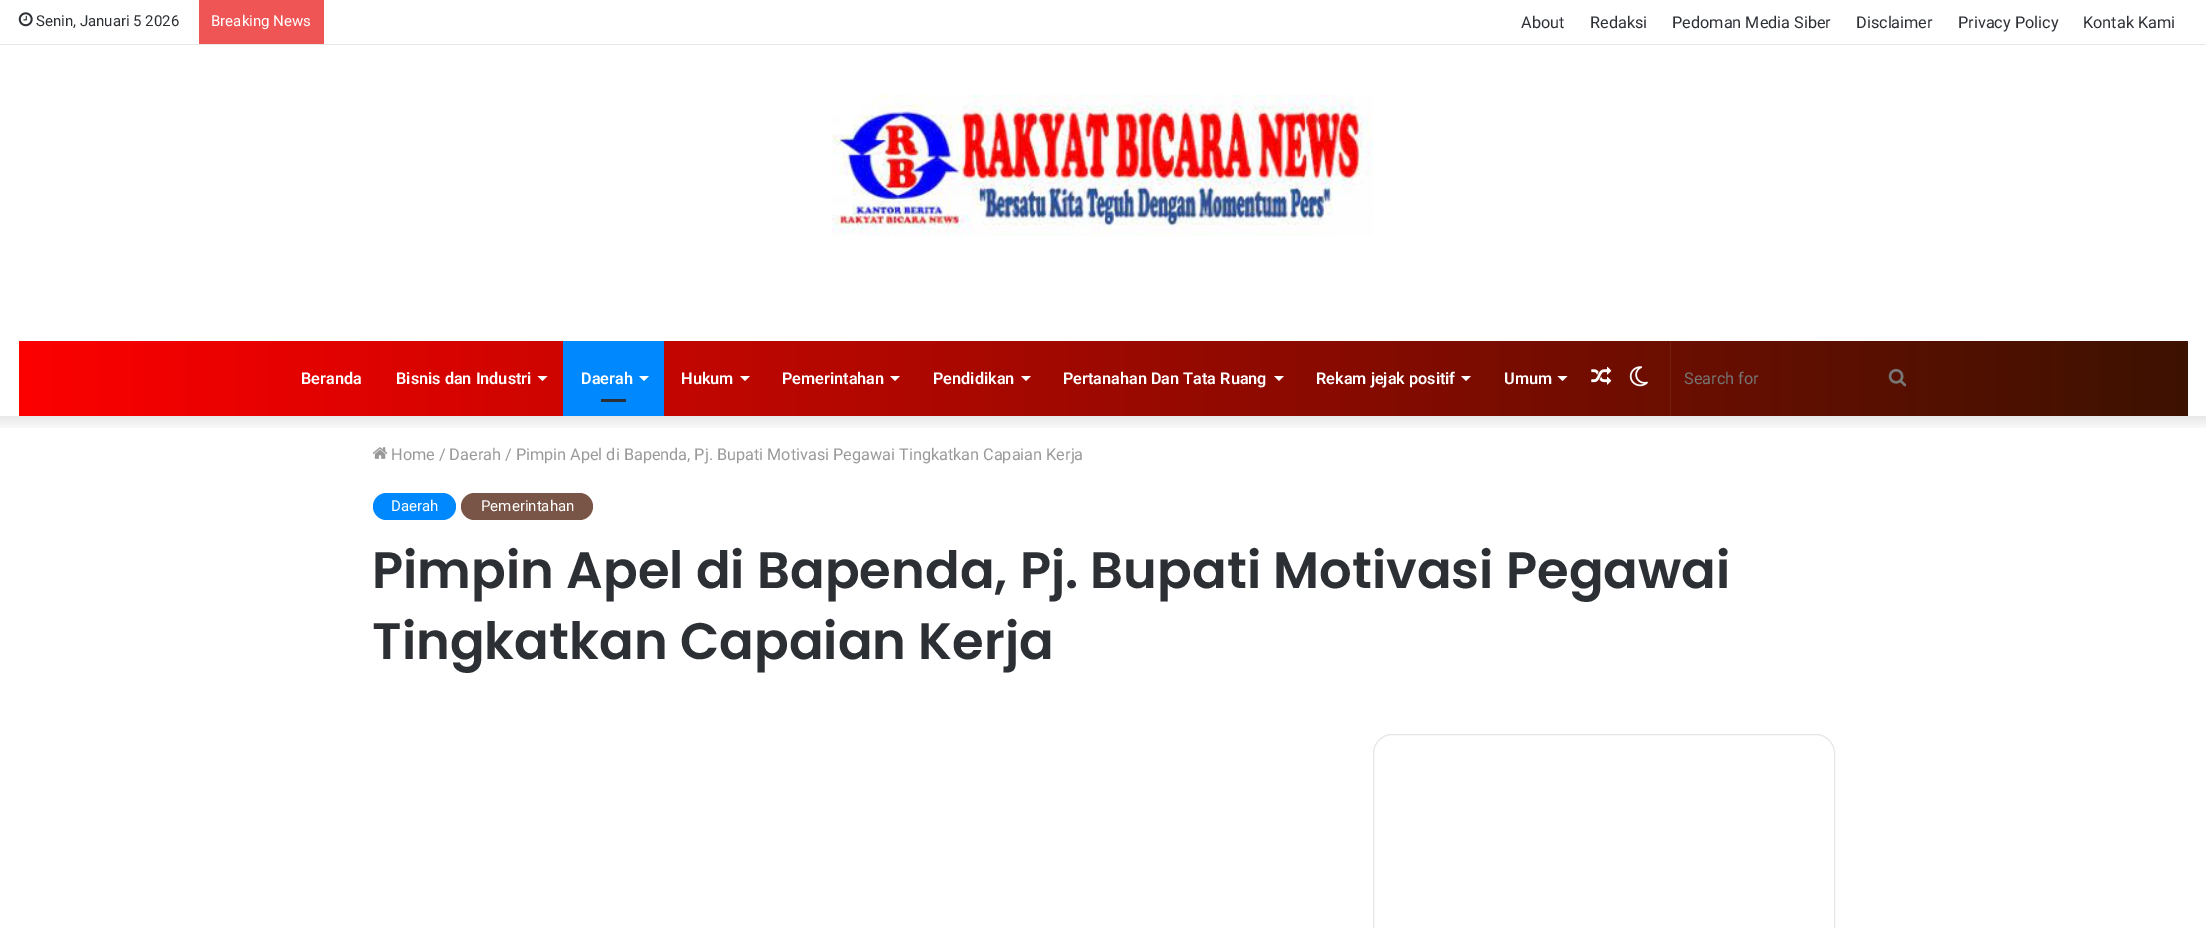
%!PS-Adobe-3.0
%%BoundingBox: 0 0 2206 928
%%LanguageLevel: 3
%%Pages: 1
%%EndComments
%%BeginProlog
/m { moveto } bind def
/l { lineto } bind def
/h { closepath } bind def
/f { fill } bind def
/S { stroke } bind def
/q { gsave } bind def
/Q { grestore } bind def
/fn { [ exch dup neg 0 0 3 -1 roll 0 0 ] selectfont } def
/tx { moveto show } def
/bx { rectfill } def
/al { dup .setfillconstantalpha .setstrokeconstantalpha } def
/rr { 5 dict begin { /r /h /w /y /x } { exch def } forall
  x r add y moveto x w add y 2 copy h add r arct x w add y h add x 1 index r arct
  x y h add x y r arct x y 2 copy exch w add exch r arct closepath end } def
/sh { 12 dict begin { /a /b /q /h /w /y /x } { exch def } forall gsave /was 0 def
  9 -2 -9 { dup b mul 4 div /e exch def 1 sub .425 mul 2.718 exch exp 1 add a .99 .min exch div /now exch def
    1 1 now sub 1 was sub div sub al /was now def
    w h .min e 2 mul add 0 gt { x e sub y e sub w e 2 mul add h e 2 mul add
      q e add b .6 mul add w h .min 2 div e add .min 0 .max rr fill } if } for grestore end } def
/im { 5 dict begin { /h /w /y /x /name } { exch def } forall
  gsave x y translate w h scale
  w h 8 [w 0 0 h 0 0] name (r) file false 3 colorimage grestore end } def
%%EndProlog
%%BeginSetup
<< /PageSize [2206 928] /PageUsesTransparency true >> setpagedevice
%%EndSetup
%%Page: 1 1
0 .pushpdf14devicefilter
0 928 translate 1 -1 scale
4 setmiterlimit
1 setgray
0 0 2206 928 bx
q
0 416 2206 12 rectclip
0 setgray
-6 -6 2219 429 0 6 0.1 sh
Q
0.902 setgray
0 44 2206 1 bx
(image0.raw) 18 12 15 15 im
/Roboto-Regular 15 fn
0.173 0.184 0.204 setrgbcolor
(Senin, Januari 5 2026) 36 26 tx
0.941 0.333 0.333 setrgbcolor
199 0 125 44 bx
1 setgray
(Breaking News) 211 26 tx
/Roboto-Regular 16.25 fn
0.173 0.184 0.204 setrgbcolor
(About) 1521 28 tx
(Redaksi) 1590 28 tx
(Pedoman Media Siber) 1672 28 tx
(Disclaimer) 1856 28 tx
(Privacy Policy) 1958 28 tx
(Kontak Kami) 2083 28 tx
(image1.raw) 832 95 541 141 im
q 19 341 m 2188 341 l 2188 416 l 19 416 l h clip newpath
<< /ShadingType 2 /ColorSpace /DeviceRGB /Coords [19 379 2188 379] /Extend [true true] /Function << /FunctionType 2 /Domain [0 1] /C0 [0.992 0 0] /C1 [0.239 0.071 0] /N 1 >> >> shfill Q
/Roboto-SemiBold 16.25 fn
1 setgray
(Beranda) 301 384 tx
(Bisnis dan Industri) 396 384 tx
537.5 376 m 547.5 376 l 542.5 381 l h f
0 0.533 1 setrgbcolor
563 341 101 75 bx
1 setgray
(Daerah) 581 384 tx
639 376 m 649 376 l 644 381 l h f
0.173 0.184 0.204 setrgbcolor
601 399 25 3 bx
1 setgray
(Hukum) 681 384 tx
740 376 m 750 376 l 745 381 l h f
(Pemerintahan) 782 384 tx
890 376 m 900 376 l 895 381 l h f
(Pendidikan) 933 384 tx
1021 376 m 1031 376 l 1026 381 l h f
(Pertanahan Dan Tata Ruang) 1063 384 tx
1274 376 m 1284 376 l 1279 381 l h f
(Rekam jejak positif) 1316 384 tx
1461 376 m 1471 376 l 1466 381 l h f
(Umum) 1504 384 tx
1557.5 376 m 1567.5 376 l 1562.5 381 l h f
(image2.raw) 1591 366 21 19 im
(image3.raw) 1629 366 19 21 im
0.459 0.122 0.071 setrgbcolor
1670 341 1 75 bx
/Roboto-Regular 16.25 fn
0.459 setgray
(Search for) 1684 384 tx
(image4.raw) 1888 368 19 19 im
(image5.raw) 372 447 16 12 im
0.6 setgray
(Home / Daerah / Pimpin Apel di Bapenda, Pj. Bupati Motivasi Pegawai Tingkatkan Capaian Kerja) 391 460 tx
0 0.533 1 setrgbcolor
373 493 83 27 13.5 rr f
/Roboto-Regular 15 fn
1 setgray
(Daerah) 391 511 tx
0.475 0.333 0.282 setrgbcolor
461 493 132 27 13.5 rr f
1 setgray
(Pemerintahan) 481 511 tx
/Poppins-SemiBold 51.25 fn
0.173 0.184 0.204 setrgbcolor
(Pimpin Apel di Bapenda, Pj. Bupati Motivasi Pegawai) 372 588 tx
(Tingkatkan Capaian Kerja) 372 659 tx
0.902 setgray
1373.5 734.5 461 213 18.5 rr S
.poppdf14devicefilter showpage
%%EOF
